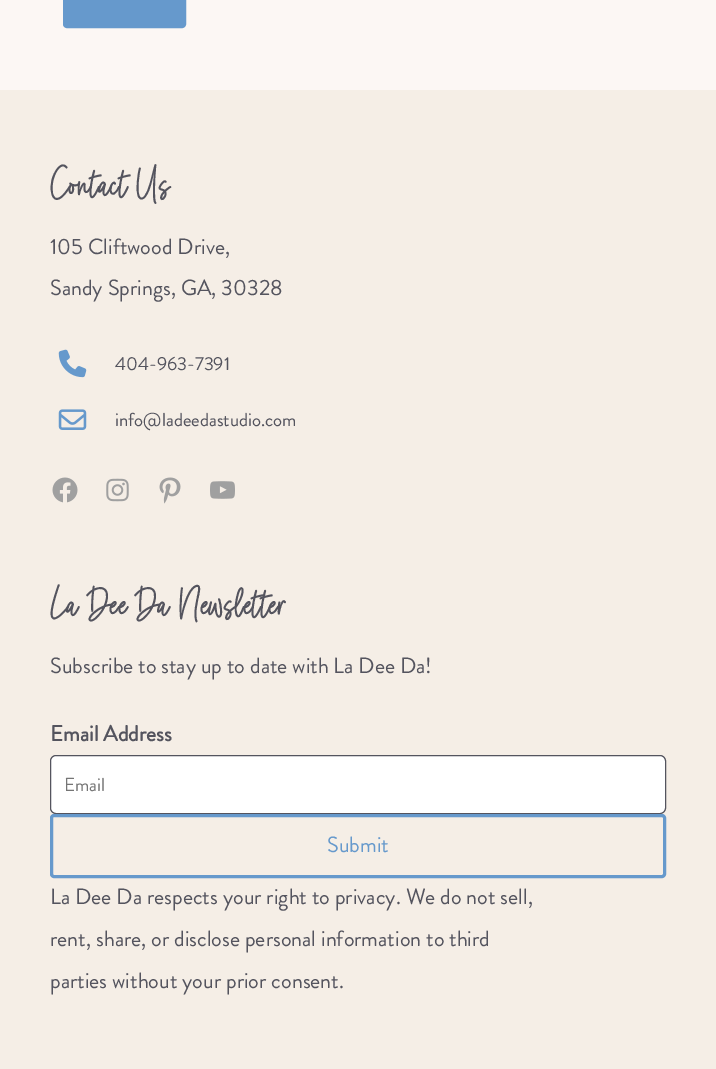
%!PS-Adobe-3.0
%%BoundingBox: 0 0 716 1069
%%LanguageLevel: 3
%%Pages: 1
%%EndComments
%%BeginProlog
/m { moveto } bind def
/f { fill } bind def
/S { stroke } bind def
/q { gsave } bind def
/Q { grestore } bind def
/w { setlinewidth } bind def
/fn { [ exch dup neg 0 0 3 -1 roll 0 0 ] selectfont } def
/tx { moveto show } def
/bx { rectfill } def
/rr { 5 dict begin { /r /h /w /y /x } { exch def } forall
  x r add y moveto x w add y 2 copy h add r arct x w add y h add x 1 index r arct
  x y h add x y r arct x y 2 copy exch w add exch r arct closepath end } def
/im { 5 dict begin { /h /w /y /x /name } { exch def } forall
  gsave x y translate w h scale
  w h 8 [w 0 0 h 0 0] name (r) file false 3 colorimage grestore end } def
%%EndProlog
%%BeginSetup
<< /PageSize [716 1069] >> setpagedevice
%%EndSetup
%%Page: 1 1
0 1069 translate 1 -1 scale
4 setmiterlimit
0.988 0.969 0.957 setrgbcolor
0 0 716 1069 bx
0.4 0.6 0.8 setrgbcolor
65 -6 119 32 2 rr q f Q
4 w
S
0.961 0.933 0.902 setrgbcolor
0 90 716 979 bx
/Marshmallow-Bold 30 fn
0.329 0.329 0.369 setrgbcolor
50 193 m 0.5 0 (Contact Us) ashow
/BrandonGrotesque-Regular 22 fn
(105 Cliftwood Drive,) 50 254 tx
(Sandy Springs, GA, 30328) 50 295 tx
(image0.raw) 58 349 29 29 im
/BrandonGrotesque-Regular 18.75 fn
(404-963-7391) 115 370 tx
(image1.raw) 58 409 29 21 im
(info@ladeedastudio.com) 115 426 tx
(image2.raw) 52 477 26 26 im
(image3.raw) 106 478 23 24 im
(image4.raw) 159 477 22 27 im
(image5.raw) 210 481 25 18 im
/Marshmallow-Bold 30 fn
50 613 m 0.5 0 (La Dee Da Newsletter) ashow
/BrandonGrotesque-Regular 22 fn
(Subscribe to stay up to date with La Dee Da!) 50 673 tx
/BrandonGrotesque-Bold 22 fn
(Email Address) 50 741 tx
1 setgray
50.5 755.5 615 58 5.5 rr q f Q
0.329 0.329 0.369 setrgbcolor
1 w
S
/BrandonGrotesque-Regular 18.75 fn
0.459 setgray
(Email) 64 791 tx
0.4 0.6 0.8 setrgbcolor
3 w
51.5 815.5 613 61 2.5 rr S
/BrandonGrotesque-Regular 22 fn
(Submit) 327 852 tx
0.329 0.329 0.369 setrgbcolor
(La Dee Da respects your right to privacy. We do not sell,) 50 904 tx
(rent, share, or disclose personal information to third) 50 946 tx
(parties without your prior consent.) 50 988 tx
showpage
%%EOF
